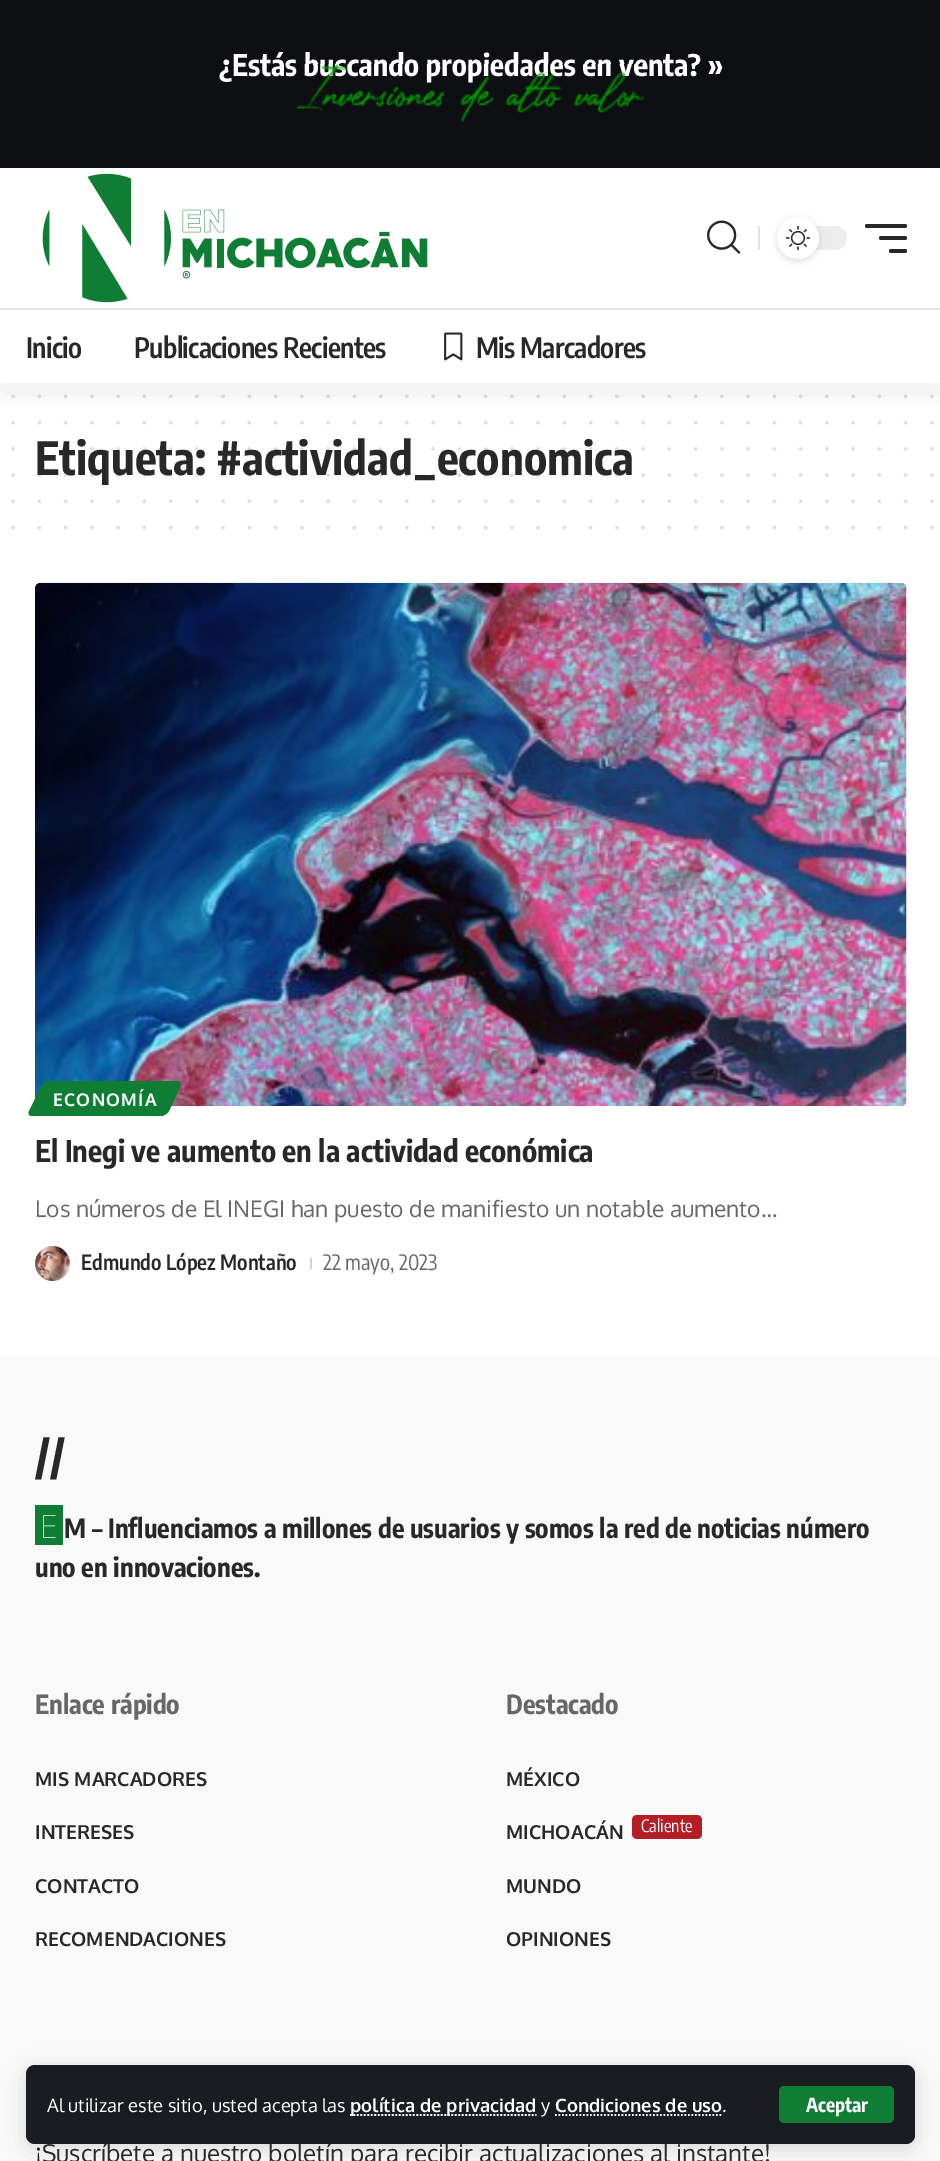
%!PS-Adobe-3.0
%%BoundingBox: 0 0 940 2161
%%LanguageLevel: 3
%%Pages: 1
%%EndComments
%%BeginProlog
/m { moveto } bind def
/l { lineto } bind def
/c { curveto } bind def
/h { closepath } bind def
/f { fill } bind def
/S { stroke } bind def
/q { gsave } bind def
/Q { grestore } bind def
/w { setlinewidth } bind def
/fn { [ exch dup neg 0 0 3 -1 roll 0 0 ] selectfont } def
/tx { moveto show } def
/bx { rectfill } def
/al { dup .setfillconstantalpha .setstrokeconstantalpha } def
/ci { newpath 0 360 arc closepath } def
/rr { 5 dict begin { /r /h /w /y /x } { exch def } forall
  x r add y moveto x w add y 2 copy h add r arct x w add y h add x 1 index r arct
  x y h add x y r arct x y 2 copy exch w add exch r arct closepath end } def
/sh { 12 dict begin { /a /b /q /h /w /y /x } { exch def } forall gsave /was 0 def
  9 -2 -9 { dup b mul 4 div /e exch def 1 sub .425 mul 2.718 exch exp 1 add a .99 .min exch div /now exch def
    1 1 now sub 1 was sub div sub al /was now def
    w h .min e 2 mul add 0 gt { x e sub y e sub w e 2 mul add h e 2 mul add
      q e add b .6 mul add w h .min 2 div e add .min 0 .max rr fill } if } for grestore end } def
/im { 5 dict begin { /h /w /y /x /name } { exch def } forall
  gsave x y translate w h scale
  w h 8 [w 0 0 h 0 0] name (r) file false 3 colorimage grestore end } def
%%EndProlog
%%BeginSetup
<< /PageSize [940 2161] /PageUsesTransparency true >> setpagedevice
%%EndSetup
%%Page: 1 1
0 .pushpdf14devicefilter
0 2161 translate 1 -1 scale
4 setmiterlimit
1 setgray
0 0 940 2161 bx
0.055 0.059 0.071 setrgbcolor
0 0 940 168 bx
/EncodeSansCondensed-Bold 29.75 fn
1 setgray
(¿Estás buscando propiedades en venta? ») 219 76 tx
(image0.raw) 295 64 351 59 im
0.875 setgray
3.5 w
1 setlinecap
[0 26.25] 0 setdash
13.1 396.4 m 932.2 396.4 l S
13.1 422.6 m 932.2 422.6 l S
/EncodeSansCondensed-Bold 45.5 fn
0.157 setgray
(Etiqueta: #actividad_economica) 35 475 tx
0.15 al
13.1 448.9 m 932.2 448.9 l S
q
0 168 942 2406 rectclip
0 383 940 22 rectclip
1 al
0 setgray
0 175 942 215 0 26 0.07 sh
Q
1 al
(image1.raw) 42 173 386 130 im
(image2.raw) 707 220 34 34 im
0.894 setgray
758 226 2 24 bx
0.929 setgray
777 226 70 24 12 rr f
0 setgray
777 219 42 42 21 3.5 0.12 sh
1 setgray
798 238 21 ci f
(image3.raw) 786 226 24 24 im
0.157 setgray
865 224 42 4 2 rr f
879 236 28 4 2 rr f
889 249 18 4 2 rr f
0.894 setgray
0 308 940 2 bx
/EncodeSansCondensed-SemiBold 28 fn
0.157 setgray
26 358 m -0.6 0 (Inicio) ashow
134 358 m -0.6 0 (Publicaciones Recientes) ashow
(image4.raw) 444 332 19 29 im
476 358 m -0.6 0 (Mis Marcadores) ashow
0.976 setgray
0 1356 940 805 bx
0 setgray
26 2070 889 79 9 10.5 0.12 sh
/Oxygen-Regular 24.15 fn
0.157 setgray
(¡Suscríbete a nuestro boletín para recibir actualizaciones al instante!) 35 2162 tx
0.098 0.11 0.125 setrgbcolor
26 2065 889 79 9 rr f
/Oxygen-Regular 18.4 fn
1 setgray
(Al utilizar este sitio, usted acepta las) 47 2112 tx
1.8 w
0 setlinecap
[1.75 1.75] 0 setdash
350 2115 m 536.5 2115 l S
/Oxygen-Bold 18.4 fn
(política de privacidad) 350 2112 tx
/Oxygen-Regular 18.4 fn
(y) 541 2112 tx
/Oxygen-Bold 18.4 fn
(Condiciones de uso) 555 2112 tx
555 2115 m 722 2115 l S
/Oxygen-Regular 18.4 fn
(.) 722 2112 tx
0.063 0.49 0.208 setrgbcolor
779 2086 115 37 5 rr f
/EncodeSansCondensed-Bold 19.25 fn
1 setgray
(Aceptar) 806 2112 tx
0.15 al
0.157 setgray
3.5 w
1 setlinecap
[0 26.25] 0 setdash
13.1 475.1 m 932.2 475.1 l S
1 al
0.875 setgray
13.1 501.4 m 932.2 501.4 l S
13.1 527.6 m 932.2 527.6 l S
(image5.raw) 35 582 872 524 im
0.063 0.49 0.208 setrgbcolor
48 1081 m 177 1081 l 180 1081 181 1084 180 1087 c 169 1111 l 167 1114 164 1116 161 1116 c 32 1116 l 29 1116 28 1114 29 1111 c 41 1087 l 42 1084 46 1081 48 1081 c h f
/Oxygen-Bold 17.5 fn
1 setgray
53 1106 m 1.25 0 (ECONOMÍA) ashow
/EncodeSansCondensed-Bold 29.75 fn
0.157 setgray
(El Inegi ve aumento en la actividad económica) 35 1162 tx
/Oxygen-Regular 22.75 fn
0.404 setgray
(Los números de El INEGI han puesto de manifiesto un notable aumento…) 35 1217 tx
(image6.raw) 35 1246 35 35 im
/EncodeSansCondensed-SemiBold 21 fn
0.157 setgray
(Edmundo López Montaño) 81 1270 tx
0.82 setgray
310 1258 2 11 bx
/EncodeSansCondensed-Regular 21 fn
0.404 setgray
(22 mayo, 2023) 323 1270 tx
/EncodeSansCondensed-Bold 45.5 fn
0.157 setgray
(//) 35 1474 tx
0.063 0.49 0.208 setrgbcolor
35 1505 28 40 bx
/NotoSans-Thin 32 fn
1 setgray
(E) 40 1538 tx
/EncodeSansCondensed-Bold 26.25 fn
0.157 setgray
(M – Influenciamos a millones de usuarios y somos la red de noticias número) 64 1538 tx
(uno en innovaciones.) 35 1577 tx
0.404 setgray
(Enlace rápido) 35 1714 tx
/Oxygen-Bold 19.25 fn
0.157 setgray
(MIS MARCADORES) 35 1786 tx
(INTERESES) 35 1839 tx
(CONTACTO) 35 1893 tx
(RECOMENDACIONES) 35 1946 tx
/EncodeSansCondensed-Bold 26.25 fn
0.404 setgray
(Destacado) 506 1714 tx
/Oxygen-Bold 19.25 fn
0.157 setgray
(MÉXICO) 506 1786 tx
(MICHOACÁN) 506 1839 tx
0.71 0.11 0.149 setrgbcolor
632 1815 70 24 5 rr f
/EncodeSansCondensed-Regular 17 fn
1 setgray
(Caliente) 641 1832 tx
/Oxygen-Bold 19.25 fn
0.157 setgray
(MUNDO) 506 1893 tx
(OPINIONES) 506 1946 tx
.poppdf14devicefilter showpage
%%EOF
